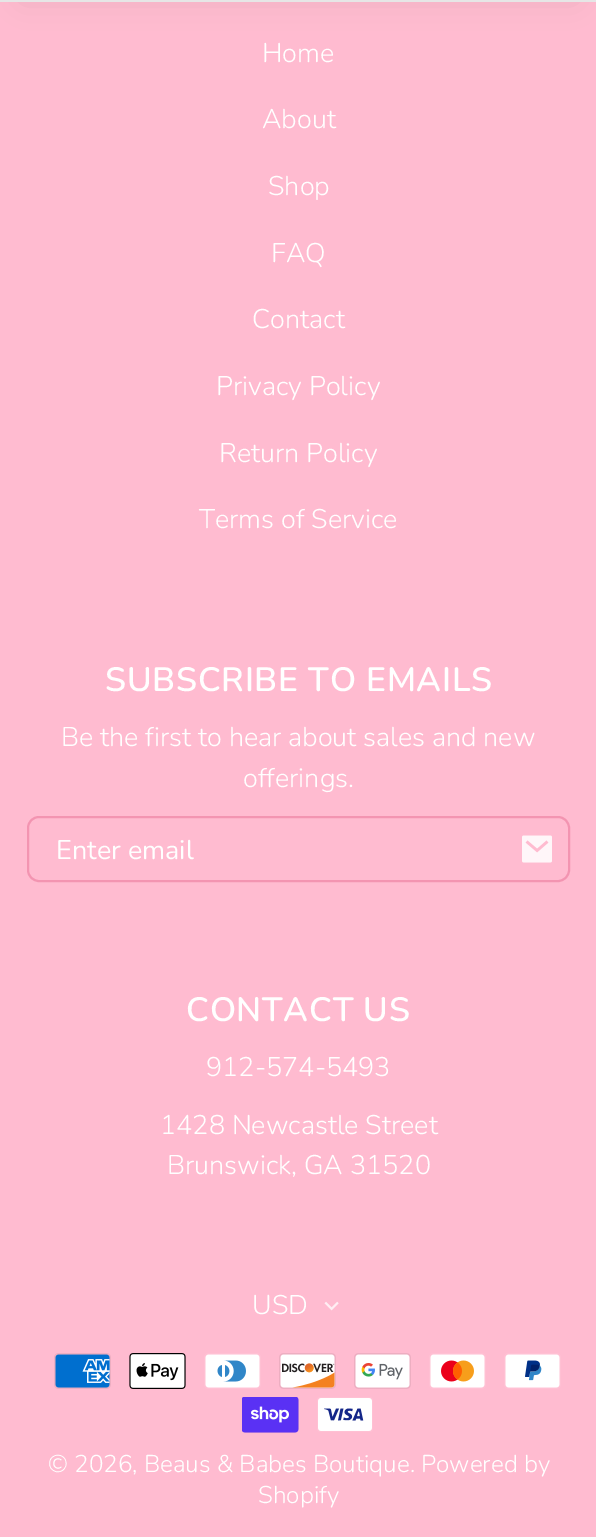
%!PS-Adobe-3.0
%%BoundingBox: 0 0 596 1537
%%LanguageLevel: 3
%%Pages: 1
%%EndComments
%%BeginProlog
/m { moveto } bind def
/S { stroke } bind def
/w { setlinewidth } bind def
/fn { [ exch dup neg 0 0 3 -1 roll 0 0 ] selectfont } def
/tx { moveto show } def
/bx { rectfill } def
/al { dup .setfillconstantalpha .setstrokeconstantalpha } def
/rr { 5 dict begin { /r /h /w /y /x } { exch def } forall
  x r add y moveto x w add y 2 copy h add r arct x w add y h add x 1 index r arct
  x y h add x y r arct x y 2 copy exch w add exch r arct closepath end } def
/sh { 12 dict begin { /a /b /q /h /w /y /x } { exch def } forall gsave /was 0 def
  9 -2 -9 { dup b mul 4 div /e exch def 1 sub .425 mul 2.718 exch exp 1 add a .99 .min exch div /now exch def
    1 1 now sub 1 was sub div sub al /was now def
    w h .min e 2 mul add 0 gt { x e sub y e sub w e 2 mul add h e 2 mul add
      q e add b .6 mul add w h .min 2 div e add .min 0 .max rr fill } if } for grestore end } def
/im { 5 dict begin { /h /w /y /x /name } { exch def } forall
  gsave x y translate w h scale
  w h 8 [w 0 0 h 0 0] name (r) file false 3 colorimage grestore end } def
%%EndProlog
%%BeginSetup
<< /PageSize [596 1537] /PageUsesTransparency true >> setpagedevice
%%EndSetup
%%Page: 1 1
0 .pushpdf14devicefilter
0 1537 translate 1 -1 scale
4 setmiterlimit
1 0.733 0.816 setrgbcolor
0 0 596 1537 bx
0.251 0.243 0.255 setrgbcolor
23 -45 552 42 0 15 0.15 sh
0.902 setgray
0 0 596 2 bx
/Nunito-Light 27 fn
1 setgray
(Home) 262 62 tx
(About) 262 128 tx
(Shop) 268 195 tx
(FAQ) 271 262 tx
(Contact) 252 328 tx
(Privacy Policy) 216 395 tx
(Return Policy) 219 462 tx
(Terms of Service) 199 528 tx
/Nunito-SemiBold 33.75 fn
105 691 m 0.7 0 (SUBSCRIBE TO EMAILS) ashow
/Nunito-Light 27 fn
(Be the first to hear about sales and new) 61 746 tx
(offerings.) 243 787 tx
0.953 0.58 0.694 setrgbcolor
2 w
28 817 541 64 11 rr S
/Nunito-Regular 27 fn
1 setgray
(Enter email) 56 859 tx
(image0.raw) 522 835 30 28 im
/Nunito-SemiBold 33.75 fn
186 1021 m 0.7 0 (CONTACT US) ashow
/Nunito-Light 27 fn
(912-574-5493) 206 1076 tx
(1428 Newcastle Street) 160 1134 tx
(Brunswick, GA 31520) 167 1174 tx
(USD) 252 1314 tx
(image1.raw) 324 1301 15 10 im
(image2.raw) 54 1353 57 36 im
(image3.raw) 129 1353 57 36 im
(image4.raw) 204 1353 57 36 im
(image5.raw) 279 1353 57 36 im
(image6.raw) 354 1353 57 36 im
(image7.raw) 429 1353 57 36 im
(image8.raw) 504 1353 57 36 im
(image9.raw) 242 1397 57 36 im
(image10.raw) 317 1397 56 35 im
/Nunito-Light 24.3 fn
(© 2026, Beaus & Babes Boutique. Powered by) 48 1472 tx
(Shopify) 258 1503 tx
.poppdf14devicefilter showpage
%%EOF
